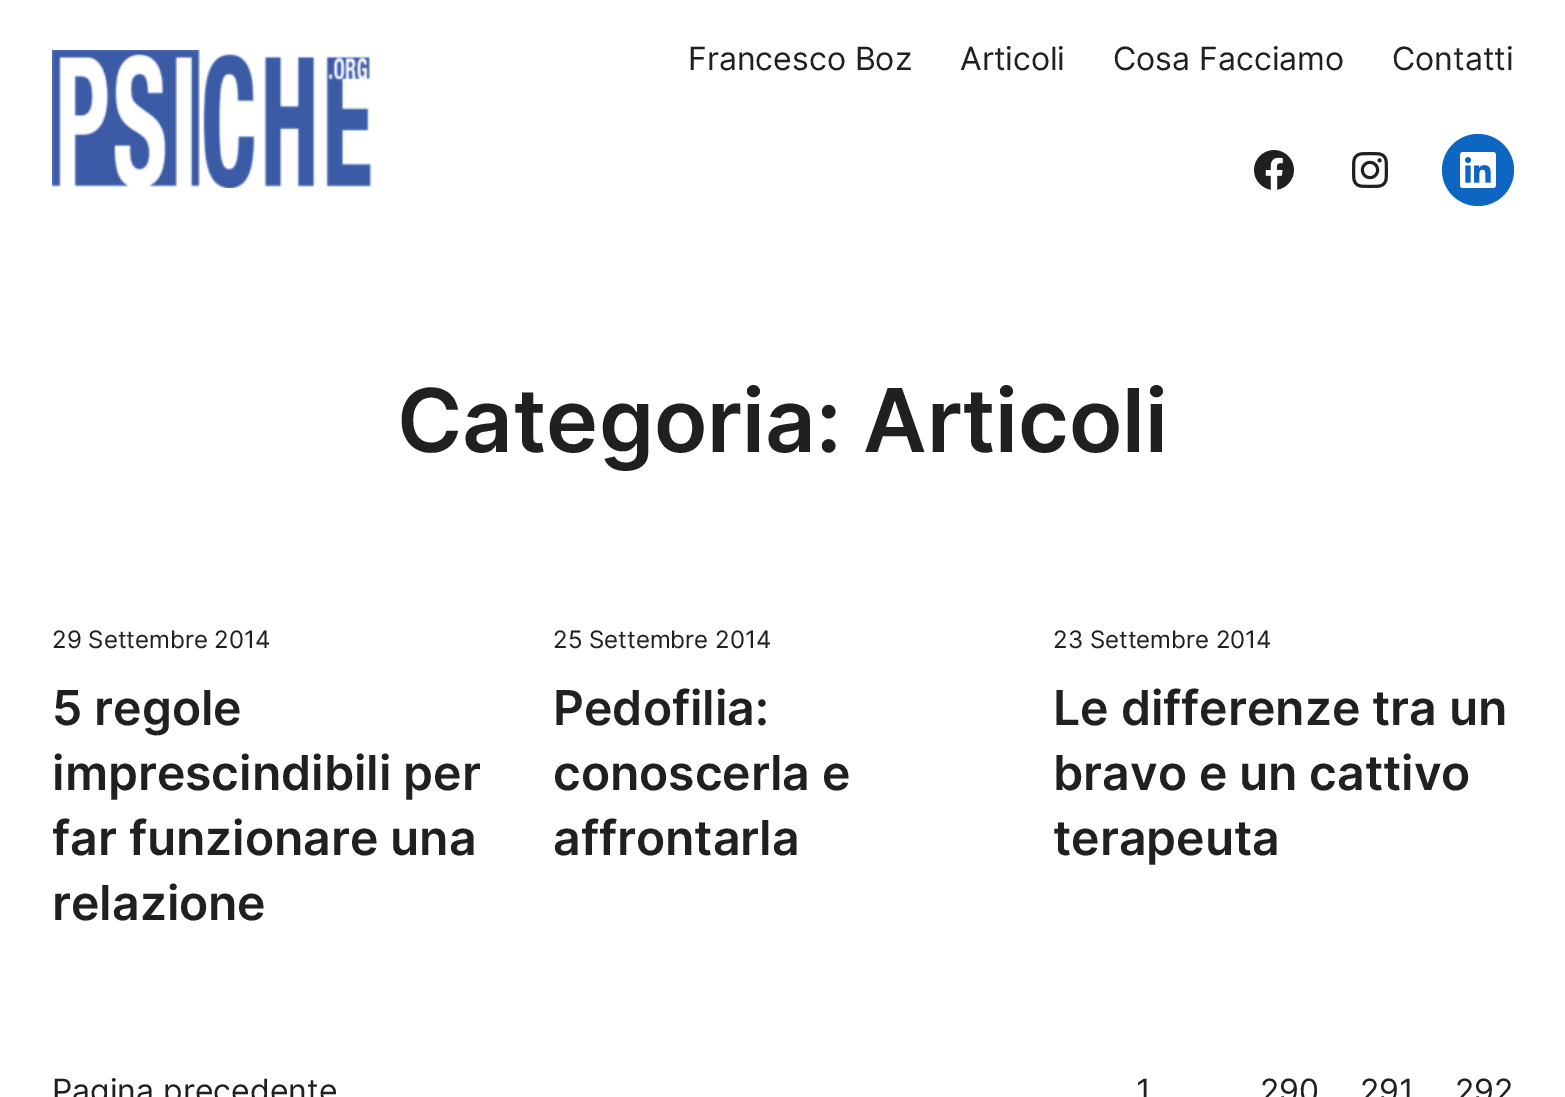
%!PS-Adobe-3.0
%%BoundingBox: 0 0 1565 1097
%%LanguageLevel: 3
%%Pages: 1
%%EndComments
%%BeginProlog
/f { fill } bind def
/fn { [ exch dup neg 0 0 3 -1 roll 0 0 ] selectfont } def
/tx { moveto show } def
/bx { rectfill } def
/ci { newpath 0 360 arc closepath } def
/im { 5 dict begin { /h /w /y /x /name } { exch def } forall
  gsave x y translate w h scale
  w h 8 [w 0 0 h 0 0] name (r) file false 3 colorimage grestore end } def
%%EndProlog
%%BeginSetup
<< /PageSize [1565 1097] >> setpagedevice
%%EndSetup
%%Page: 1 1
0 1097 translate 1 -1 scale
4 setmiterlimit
1 setgray
0 0 1565 1097 bx
(image0.raw) 52 50 320 138 im
/Inter-Regular 32 fn
0.125 setgray
(Francesco Boz) 688 70 tx
(Articoli) 960 70 tx
(Cosa Facciamo) 1113 70 tx
(Contatti) 1392 70 tx
(image1.raw) 1254 150 40 40 im
(image2.raw) 1352 152 36 36 im
0.051 0.4 0.761 setrgbcolor
1478 170 36 ci f
(image3.raw) 1460 152 36 36 im
/Inter-SemiBold 88 fn
0.125 setgray
(Categoria: Articoli) 397 452 tx
/Inter-Regular 24 fn
(29 Settembre 2014) 52 648 tx
/Inter-SemiBold 48 fn
(5 regole) 52 725 tx
(imprescindibili per) 52 790 tx
(far funzionare una) 52 855 tx
(relazione) 52 920 tx
/Inter-Regular 24 fn
(25 Settembre 2014) 553 648 tx
/Inter-SemiBold 48 fn
(Pedofilia:) 553 725 tx
(conoscerla e) 553 790 tx
(affrontarla) 553 855 tx
/Inter-Regular 24 fn
(23 Settembre 2014) 1053 648 tx
/Inter-SemiBold 48 fn
(Le differenze tra un) 1053 725 tx
(bravo e un cattivo) 1053 790 tx
(terapeuta) 1053 855 tx
/Inter-Regular 32 fn
(Pagina precedente) 52 1102 tx
(1) 1136 1102 tx
(290) 1260 1102 tx
(291) 1360 1102 tx
(292) 1455 1102 tx
showpage
%%EOF
